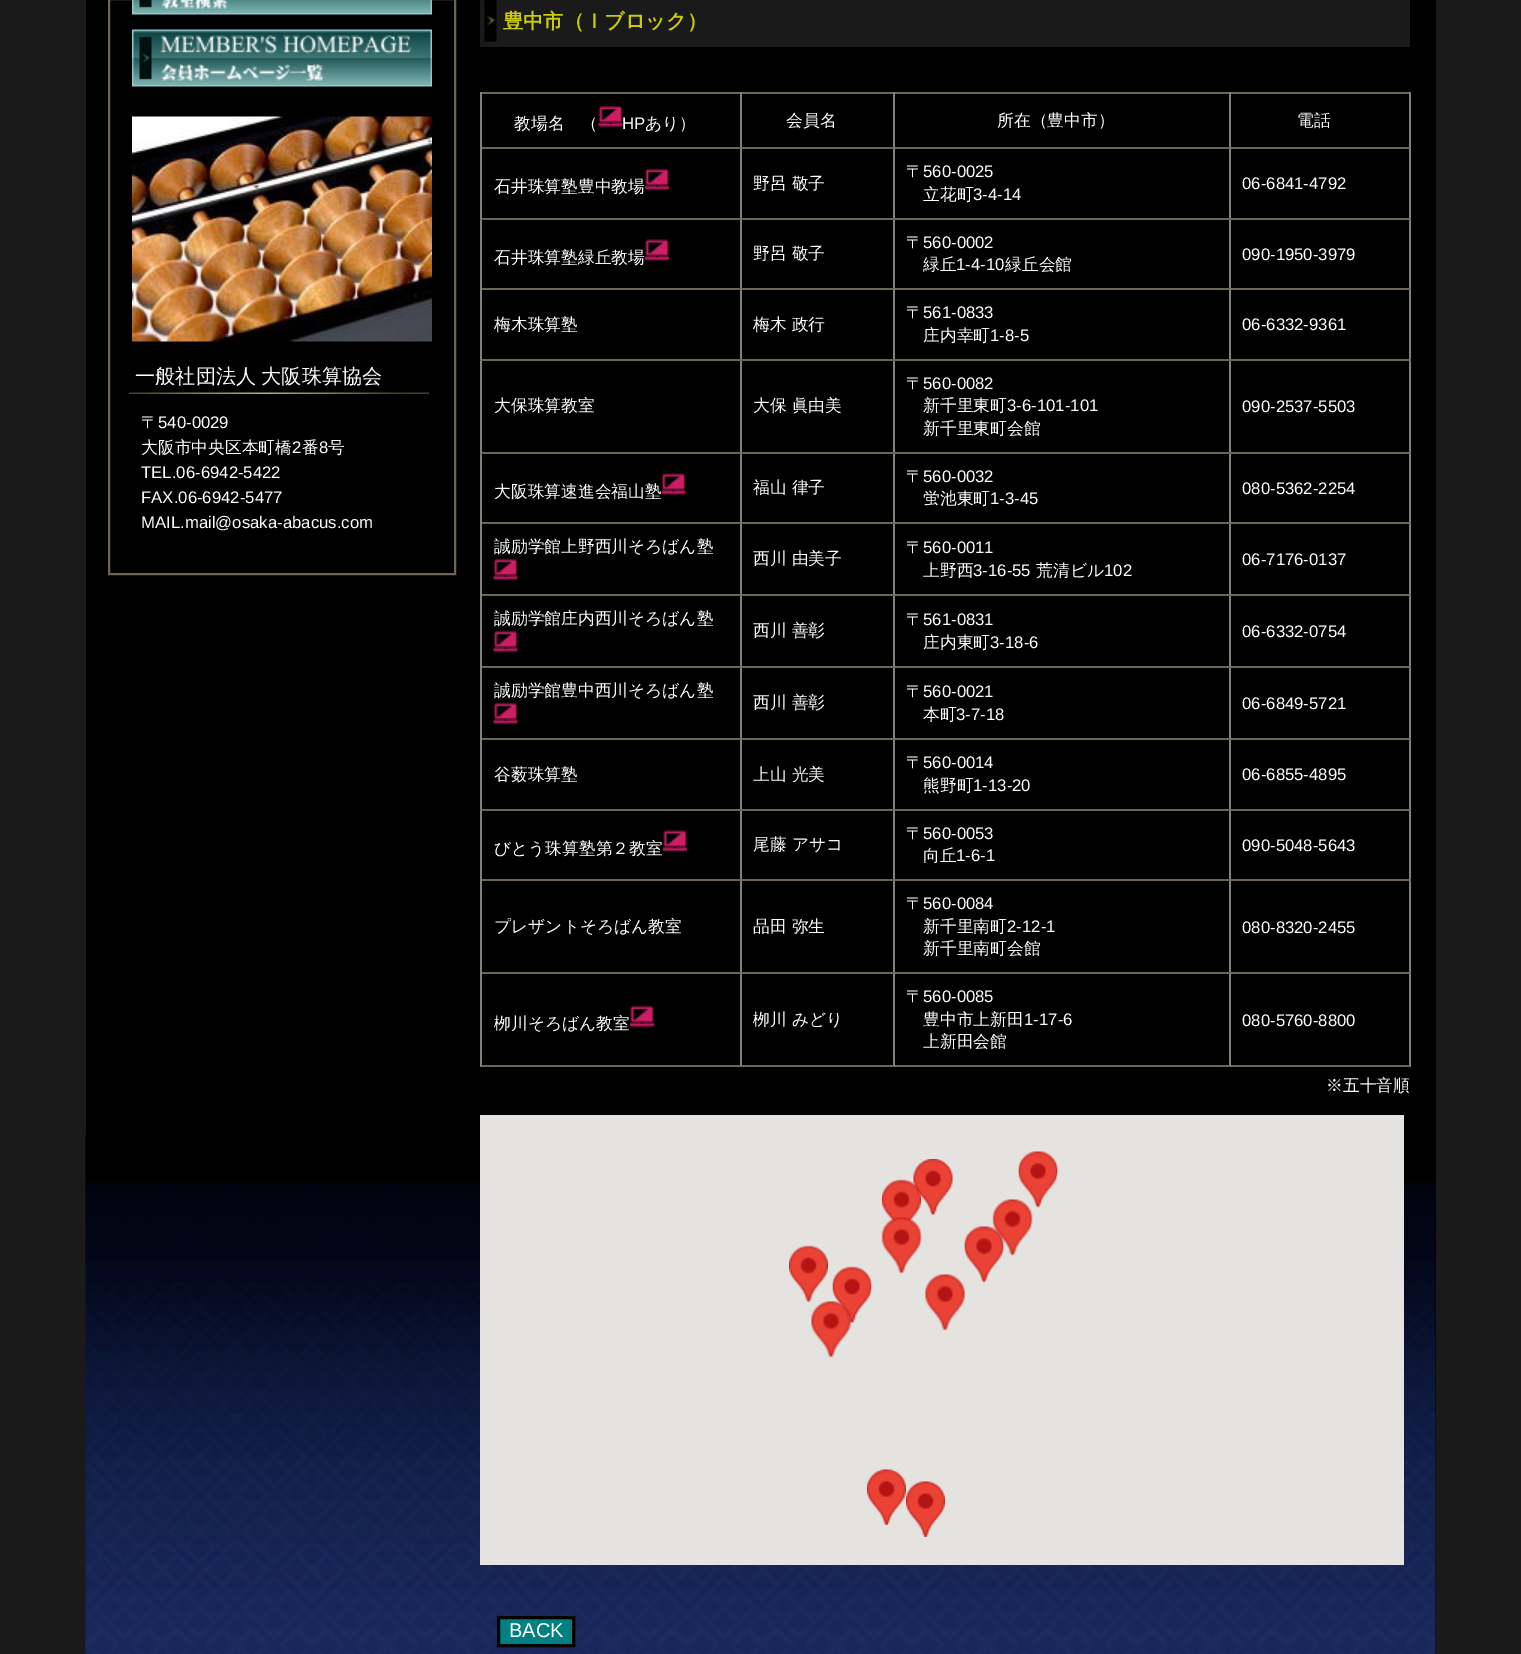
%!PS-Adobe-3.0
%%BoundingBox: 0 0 1521 1654
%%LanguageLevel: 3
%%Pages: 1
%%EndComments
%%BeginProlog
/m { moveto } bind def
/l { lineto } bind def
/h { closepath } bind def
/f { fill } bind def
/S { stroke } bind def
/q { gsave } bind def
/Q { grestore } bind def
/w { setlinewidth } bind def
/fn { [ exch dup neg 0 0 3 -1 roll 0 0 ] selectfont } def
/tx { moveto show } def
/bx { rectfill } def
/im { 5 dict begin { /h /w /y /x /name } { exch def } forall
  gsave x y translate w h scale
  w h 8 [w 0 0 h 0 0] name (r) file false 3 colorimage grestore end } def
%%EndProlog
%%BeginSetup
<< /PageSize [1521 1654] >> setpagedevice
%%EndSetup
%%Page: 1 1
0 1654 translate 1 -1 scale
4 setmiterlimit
0.102 setgray
0 0 1521 1654 bx
0 setgray
86 0 1350 1654 bx
(image0.raw) 85 1135 1351 519 im
0.424 0.396 0.337 setrgbcolor
2 w
109 -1 346 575 rectstroke
(image1.raw) 132 0 300 15 im
(image2.raw) 132 29 300 58 im
(image3.raw) 132 116 300 226 im
(image4.raw) 129 392 300 2 im
/WenQuanYiZenHei-Medium 20.2 fn
1 setgray
135 383 m -1 0 32 (一般社団法人 大阪珠算協会) widthshow
/WenQuanYiZenHei-Medium 16.75 fn
(〒) 141 428 tx
/LiberationSans-Regular 16.75 fn
(540-0029) 158 428 tx
/WenQuanYiZenHei-Medium 16.75 fn
(大阪市中央区本町橋) 141 453 tx
/LiberationSans-Regular 16.75 fn
(2) 292 453 tx
/WenQuanYiZenHei-Medium 16.75 fn
(番) 302 453 tx
/LiberationSans-Regular 16.75 fn
(8) 319 453 tx
/WenQuanYiZenHei-Medium 16.75 fn
(号) 328 453 tx
/LiberationSans-Regular 16.75 fn
(TEL.06-6942-5422) 141 478 tx
(FAX.06-6942-5477) 141 503 tx
(MAIL.mail@osaka-abacus.com) 141 528 tx
0.102 setgray
480 0 930 47 bx
(image5.raw) 484 0 13 42 im
/WenQuanYiZenHei-Bold 20.2 fn
0.8 0.8 0 setrgbcolor
(豊中市（Ｉブロック）) 503 28 tx
0.424 0.396 0.337 setrgbcolor
480 92 930 2 bx
0.502 setgray
1409 147 2 920 bx
1409 92 2 57 bx
0.424 0.396 0.337 setrgbcolor
1229 1065 181 2 bx
0.502 setgray
1229 972 2 95 bx
0.424 0.396 0.337 setrgbcolor
1229 972 181 2 bx
0.502 setgray
1229 879 2 95 bx
0.424 0.396 0.337 setrgbcolor
1229 879 181 2 bx
0.502 setgray
1229 809 2 72 bx
0.424 0.396 0.337 setrgbcolor
1229 809 181 2 bx
0.502 setgray
1229 738 2 72 bx
0.424 0.396 0.337 setrgbcolor
1229 738 181 2 bx
0.502 setgray
1229 666 2 74 bx
0.424 0.396 0.337 setrgbcolor
1229 666 181 2 bx
0.502 setgray
1229 594 2 74 bx
0.424 0.396 0.337 setrgbcolor
1229 594 181 2 bx
0.502 setgray
1229 522 2 74 bx
0.424 0.396 0.337 setrgbcolor
1229 522 181 2 bx
0.502 setgray
1229 452 2 72 bx
0.424 0.396 0.337 setrgbcolor
1229 452 181 2 bx
0.502 setgray
1229 359 2 94 bx
0.424 0.396 0.337 setrgbcolor
1229 359 181 2 bx
0.502 setgray
1229 288 2 72 bx
0.424 0.396 0.337 setrgbcolor
1229 288 181 2 bx
0.502 setgray
1229 218 2 72 bx
0.424 0.396 0.337 setrgbcolor
1229 218 181 2 bx
0.502 setgray
1229 147 2 72 bx
0.424 0.396 0.337 setrgbcolor
1229 147 181 2 bx
0.502 setgray
1229 92 2 57 bx
0.424 0.396 0.337 setrgbcolor
893 1065 337 2 bx
0.502 setgray
893 972 2 95 bx
0.424 0.396 0.337 setrgbcolor
893 972 337 2 bx
0.502 setgray
893 879 2 95 bx
0.424 0.396 0.337 setrgbcolor
893 879 337 2 bx
0.502 setgray
893 809 2 72 bx
0.424 0.396 0.337 setrgbcolor
893 809 337 2 bx
0.502 setgray
893 738 2 72 bx
0.424 0.396 0.337 setrgbcolor
893 738 337 2 bx
0.502 setgray
893 666 2 74 bx
0.424 0.396 0.337 setrgbcolor
893 666 337 2 bx
0.502 setgray
893 594 2 74 bx
0.424 0.396 0.337 setrgbcolor
893 594 337 2 bx
0.502 setgray
893 522 2 74 bx
0.424 0.396 0.337 setrgbcolor
893 522 337 2 bx
0.502 setgray
893 452 2 72 bx
0.424 0.396 0.337 setrgbcolor
893 452 337 2 bx
0.502 setgray
893 359 2 94 bx
0.424 0.396 0.337 setrgbcolor
893 359 337 2 bx
0.502 setgray
893 288 2 72 bx
0.424 0.396 0.337 setrgbcolor
893 288 337 2 bx
0.502 setgray
893 218 2 72 bx
0.424 0.396 0.337 setrgbcolor
893 218 337 2 bx
0.502 setgray
893 147 2 72 bx
0.424 0.396 0.337 setrgbcolor
893 147 337 2 bx
0.502 setgray
893 92 2 57 bx
0.424 0.396 0.337 setrgbcolor
740 1065 154 2 bx
0.502 setgray
740 972 2 95 bx
0.424 0.396 0.337 setrgbcolor
740 972 154 2 bx
0.502 setgray
740 879 2 95 bx
0.424 0.396 0.337 setrgbcolor
740 879 154 2 bx
0.502 setgray
740 809 2 72 bx
0.424 0.396 0.337 setrgbcolor
740 809 154 2 bx
0.502 setgray
740 738 2 72 bx
0.424 0.396 0.337 setrgbcolor
740 738 154 2 bx
0.502 setgray
740 666 2 74 bx
0.424 0.396 0.337 setrgbcolor
740 666 154 2 bx
0.502 setgray
740 594 2 74 bx
0.424 0.396 0.337 setrgbcolor
740 594 154 2 bx
0.502 setgray
740 522 2 74 bx
0.424 0.396 0.337 setrgbcolor
740 522 154 2 bx
0.502 setgray
740 452 2 72 bx
0.424 0.396 0.337 setrgbcolor
740 452 154 2 bx
0.502 setgray
740 359 2 94 bx
0.424 0.396 0.337 setrgbcolor
740 359 154 2 bx
0.502 setgray
740 288 2 72 bx
0.424 0.396 0.337 setrgbcolor
740 288 154 2 bx
0.502 setgray
740 218 2 72 bx
0.424 0.396 0.337 setrgbcolor
740 218 154 2 bx
0.502 setgray
740 147 2 72 bx
0.424 0.396 0.337 setrgbcolor
740 147 154 2 bx
0.502 setgray
740 92 2 57 bx
0.424 0.396 0.337 setrgbcolor
480 1065 261 2 bx
0.502 setgray
480 972 2 95 bx
0.424 0.396 0.337 setrgbcolor
480 972 261 2 bx
0.502 setgray
480 879 2 95 bx
0.424 0.396 0.337 setrgbcolor
480 879 261 2 bx
0.502 setgray
480 809 2 72 bx
0.424 0.396 0.337 setrgbcolor
480 809 261 2 bx
0.502 setgray
480 738 2 72 bx
0.424 0.396 0.337 setrgbcolor
480 738 261 2 bx
0.502 setgray
480 666 2 74 bx
0.424 0.396 0.337 setrgbcolor
480 666 261 2 bx
0.502 setgray
480 594 2 74 bx
0.424 0.396 0.337 setrgbcolor
480 594 261 2 bx
0.502 setgray
480 522 2 74 bx
0.424 0.396 0.337 setrgbcolor
480 522 261 2 bx
0.502 setgray
480 452 2 72 bx
0.424 0.396 0.337 setrgbcolor
480 452 261 2 bx
0.502 setgray
480 359 2 94 bx
0.424 0.396 0.337 setrgbcolor
480 359 261 2 bx
0.502 setgray
480 288 2 72 bx
0.424 0.396 0.337 setrgbcolor
480 288 261 2 bx
0.502 setgray
480 218 2 72 bx
0.424 0.396 0.337 setrgbcolor
480 218 261 2 bx
0.502 setgray
480 147 2 72 bx
0.424 0.396 0.337 setrgbcolor
480 147 261 2 bx
0.502 setgray
480 92 2 57 bx
/WenQuanYiZenHei-Medium 16.75 fn
1 setgray
(教場名　（) 514 129 tx
(image6.raw) 598 105 25 23 im
/LiberationSans-Regular 16.75 fn
(HP) 622 129 tx
/WenQuanYiZenHei-Medium 16.75 fn
(あり）) 645 129 tx
(会員名) 786 126 tx
(所在（豊中市）) 997 126 tx
(電話) 1297 126 tx
(石井珠算塾豊中教場) 494 192 tx
(image7.raw) 645 168 24 23 im
(野呂 敬子) 753 189 tx
(〒) 906 177 tx
/LiberationSans-Regular 16.75 fn
(560-0025) 923 177 tx
/WenQuanYiZenHei-Medium 16.75 fn
(立花町) 923 200 tx
/LiberationSans-Regular 16.75 fn
(3-4-14) 973 200 tx
(06-6841-4792) 1242 189 tx
/WenQuanYiZenHei-Medium 16.75 fn
(石井珠算塾緑丘教場) 494 263 tx
(image8.raw) 645 239 24 22 im
(野呂 敬子) 753 259 tx
(〒) 906 248 tx
/LiberationSans-Regular 16.75 fn
(560-0002) 923 248 tx
/WenQuanYiZenHei-Medium 16.75 fn
(緑丘) 923 270 tx
/LiberationSans-Regular 16.75 fn
(1-4-10) 956 270 tx
/WenQuanYiZenHei-Medium 16.75 fn
(緑丘会館) 1005 270 tx
/LiberationSans-Regular 16.75 fn
(090-1950-3979) 1242 260 tx
/WenQuanYiZenHei-Medium 16.75 fn
(梅木珠算塾) 494 330 tx
(梅木 政行) 753 330 tx
(〒) 906 318 tx
/LiberationSans-Regular 16.75 fn
(561-0833) 923 318 tx
/WenQuanYiZenHei-Medium 16.75 fn
(庄内幸町) 923 341 tx
/LiberationSans-Regular 16.75 fn
(1-8-5) 990 341 tx
(06-6332-9361) 1242 330 tx
/WenQuanYiZenHei-Medium 16.75 fn
(大保珠算教室) 494 411 tx
(大保 眞由美) 753 411 tx
(〒) 906 389 tx
/LiberationSans-Regular 16.75 fn
(560-0082) 923 389 tx
/WenQuanYiZenHei-Medium 16.75 fn
(新千里東町) 923 411 tx
/LiberationSans-Regular 16.75 fn
(3-6-101-101) 1007 411 tx
/WenQuanYiZenHei-Medium 16.75 fn
(新千里東町会館) 923 434 tx
/LiberationSans-Regular 16.75 fn
(090-2537-5503) 1242 412 tx
/WenQuanYiZenHei-Medium 16.75 fn
(大阪珠算速進会福山塾) 494 497 tx
(image9.raw) 661 473 25 22 im
(福山 律子) 753 493 tx
(〒) 906 482 tx
/LiberationSans-Regular 16.75 fn
(560-0032) 923 482 tx
/WenQuanYiZenHei-Medium 16.75 fn
(蛍池東町) 923 504 tx
/LiberationSans-Regular 16.75 fn
(1-3-45) 990 504 tx
(080-5362-2254) 1242 494 tx
/WenQuanYiZenHei-Medium 16.75 fn
(誠励学館上野西川そろばん塾) 494 552 tx
(image10.raw) 493 558 25 23 im
(西川 由美子) 753 564 tx
(〒) 906 553 tx
/LiberationSans-Regular 16.75 fn
(560-0011) 923 553 tx
/WenQuanYiZenHei-Medium 16.75 fn
(上野西) 923 576 tx
/LiberationSans-Regular 16.75 fn
(3-16-55) 973 576 tx
/WenQuanYiZenHei-Medium 16.75 fn
(荒清ビル) 1036 576 tx
/LiberationSans-Regular 16.75 fn
(102) 1104 576 tx
(06-7176-0137) 1242 565 tx
/WenQuanYiZenHei-Medium 16.75 fn
(誠励学館庄内西川そろばん塾) 494 624 tx
(image10.raw) 493 630 25 23 im
(西川 善彰) 753 636 tx
(〒) 906 625 tx
/LiberationSans-Regular 16.75 fn
(561-0831) 923 625 tx
/WenQuanYiZenHei-Medium 16.75 fn
(庄内東町) 923 648 tx
/LiberationSans-Regular 16.75 fn
(3-18-6) 990 648 tx
(06-6332-0754) 1242 637 tx
/WenQuanYiZenHei-Medium 16.75 fn
(誠励学館豊中西川そろばん塾) 494 696 tx
(image10.raw) 493 702 25 23 im
(西川 善彰) 753 708 tx
(〒) 906 697 tx
/LiberationSans-Regular 16.75 fn
(560-0021) 923 697 tx
/WenQuanYiZenHei-Medium 16.75 fn
(本町) 923 720 tx
/LiberationSans-Regular 16.75 fn
(3-7-18) 956 720 tx
(06-6849-5721) 1242 709 tx
/WenQuanYiZenHei-Medium 16.75 fn
(谷薮珠算塾) 494 780 tx
(上山 光美) 753 780 tx
(〒) 906 768 tx
/LiberationSans-Regular 16.75 fn
(560-0014) 923 768 tx
/WenQuanYiZenHei-Medium 16.75 fn
(熊野町) 923 791 tx
/LiberationSans-Regular 16.75 fn
(1-13-20) 973 791 tx
(06-6855-4895) 1242 780 tx
/WenQuanYiZenHei-Medium 16.75 fn
(びとう珠算塾第２教室) 494 854 tx
(image8.raw) 663 830 24 22 im
(尾藤 アサコ) 753 850 tx
(〒) 906 839 tx
/LiberationSans-Regular 16.75 fn
(560-0053) 923 839 tx
/WenQuanYiZenHei-Medium 16.75 fn
(向丘) 923 861 tx
/LiberationSans-Regular 16.75 fn
(1-6-1) 956 861 tx
(090-5048-5643) 1242 851 tx
/WenQuanYiZenHei-Medium 16.75 fn
(プレザントそろばん教室) 494 932 tx
(品田 弥生) 753 932 tx
(〒) 906 909 tx
/LiberationSans-Regular 16.75 fn
(560-0084) 923 909 tx
/WenQuanYiZenHei-Medium 16.75 fn
(新千里南町) 923 932 tx
/LiberationSans-Regular 16.75 fn
(2-12-1) 1007 932 tx
/WenQuanYiZenHei-Medium 16.75 fn
(新千里南町会館) 923 954 tx
/LiberationSans-Regular 16.75 fn
(080-8320-2455) 1242 933 tx
/WenQuanYiZenHei-Medium 16.75 fn
(栁川そろばん教室) 494 1029 tx
(image7.raw) 630 1005 24 23 im
(栁川 みどり) 753 1025 tx
(〒) 906 1002 tx
/LiberationSans-Regular 16.75 fn
(560-0085) 923 1002 tx
/WenQuanYiZenHei-Medium 16.75 fn
(豊中市上新田) 923 1025 tx
/LiberationSans-Regular 16.75 fn
(1-17-6) 1024 1025 tx
/WenQuanYiZenHei-Medium 16.75 fn
(上新田会館) 923 1047 tx
/LiberationSans-Regular 16.75 fn
(080-5760-8800) 1242 1026 tx
/WenQuanYiZenHei-Medium 16.75 fn
(※五十音順) 1326 1091 tx
0.898 0.89 0.875 setrgbcolor
480 1115 924 450 bx
(image12.raw) 913 1159 40 56 im
(image11.raw) 882 1179 39 43 im
(image14.raw) 1018 1151 40 57 im
(image13.raw) 992 1199 41 57 im
(image15.raw) 789 1245 39 57 im
(image17.raw) 832 1266 40 57 im
(image16.raw) 811 1301 40 57 im
(image18.raw) 881 1217 41 57 im
(image20.raw) 964 1226 40 57 im
(image19.raw) 925 1274 40 57 im
(image21.raw) 867 1469 39 56 im
(image21.raw) 906 1481 39 56 im
0 0.502 0.502 setrgbcolor
498.5 1617.5 m 573.5 1617.5 l 573.5 1645.5 l 498.5 1645.5 l h q f Q
0 setgray
3 w
S
/LiberationSans-Regular 20 fn
1 setgray
(BACK) 509 1637 tx
showpage
%%EOF
